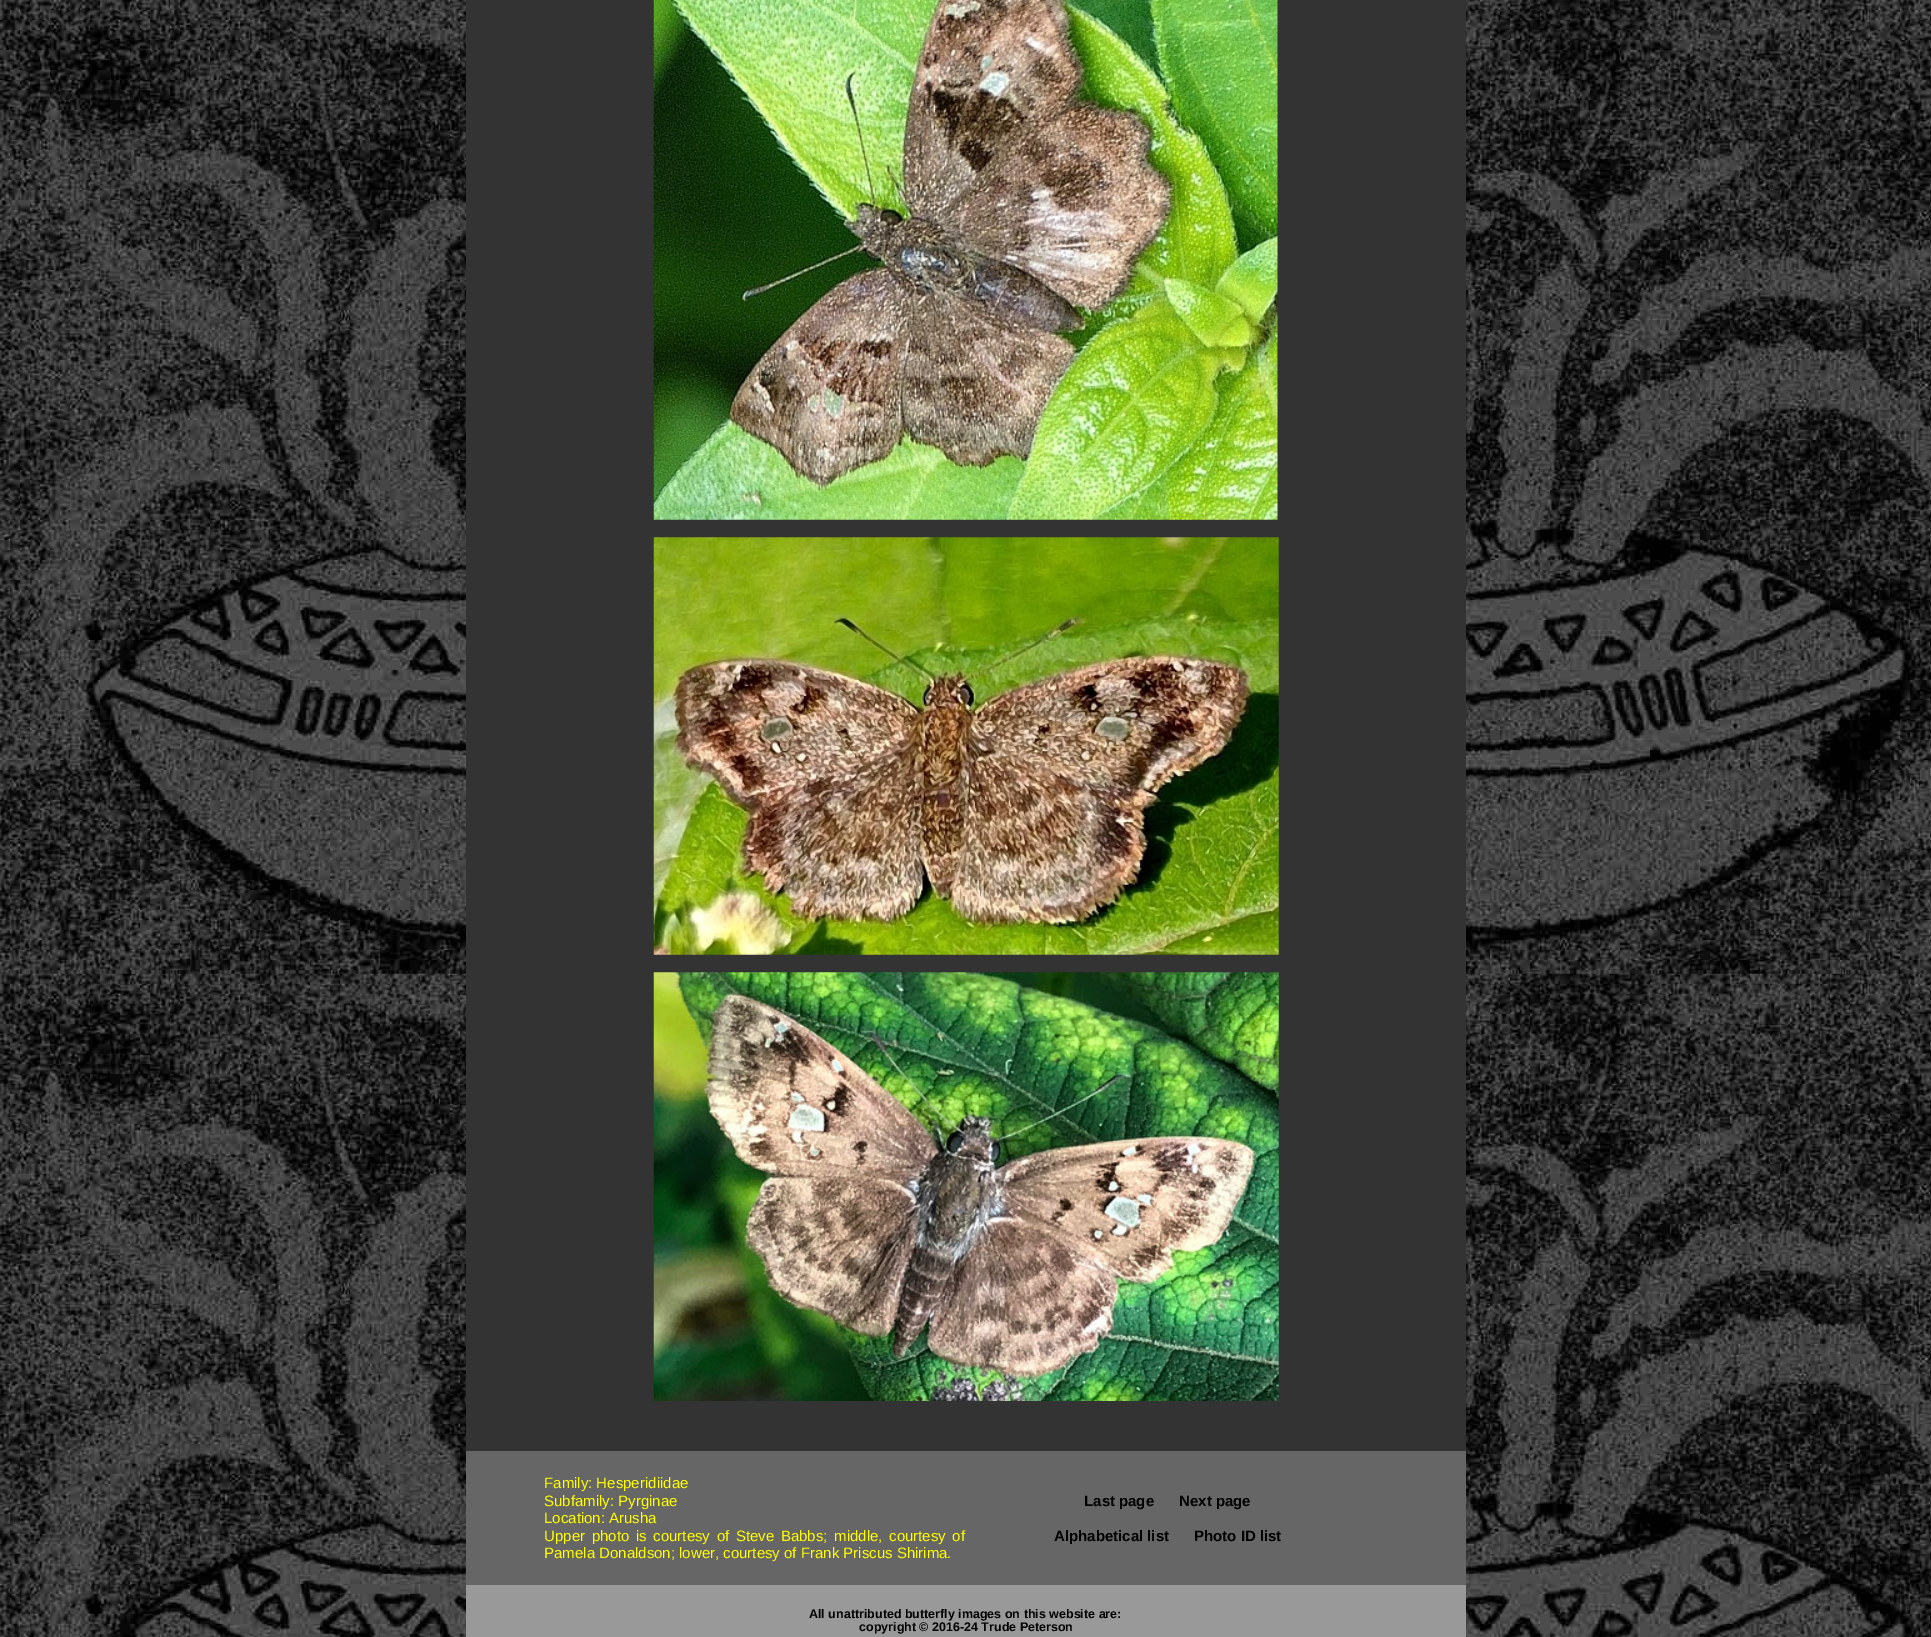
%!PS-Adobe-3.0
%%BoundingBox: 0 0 1931 1637
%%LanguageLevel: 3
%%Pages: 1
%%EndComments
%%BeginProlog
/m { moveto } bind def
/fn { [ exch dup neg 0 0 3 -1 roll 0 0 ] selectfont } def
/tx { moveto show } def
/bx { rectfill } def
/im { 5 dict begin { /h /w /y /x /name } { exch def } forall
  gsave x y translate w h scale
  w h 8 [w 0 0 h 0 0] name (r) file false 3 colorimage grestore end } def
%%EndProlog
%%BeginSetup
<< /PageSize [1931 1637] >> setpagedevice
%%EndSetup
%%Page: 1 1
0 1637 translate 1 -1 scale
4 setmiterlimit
1 setgray
0 0 1931 1637 bx
(image0.raw) 0 0 1931 1637 im
0.2 setgray
466 0 1000 1451 bx
(image1.raw) 653 0 625 520 im
(image2.raw) 653 537 626 418 im
(image3.raw) 653 972 626 429 im
0.4 setgray
466 1451 1000 134 bx
/LiberationSans-Regular 15 fn
1 1 0 setrgbcolor
(Family: Hesperidiidae) 544 1488 tx
(Subfamily: Pyrginae) 544 1506 tx
(Location: Arusha) 544 1523 tx
544 1541 m 2.5 0 32 (Upper photo is courtesy of Steve Babbs; middle, courtesy of) widthshow
(Pamela Donaldson; lower, courtesy of Frank Priscus Shirima.) 544 1558 tx
/LiberationSans-Bold 15 fn
0 setgray
(Last page) 1084 1506 tx
(Next page) 1179 1506 tx
(Alphabetical list) 1054 1541 tx
(Photo ID list) 1194 1541 tx
0.6 setgray
466 1585 1000 52 bx
/LiberationSans-Bold 12.5 fn
0 setgray
(All unattributed butterfly images on this website are:) 809 1618 tx
(copyright © 2016-24 Trude Peterson) 859 1631 tx
showpage
%%EOF
